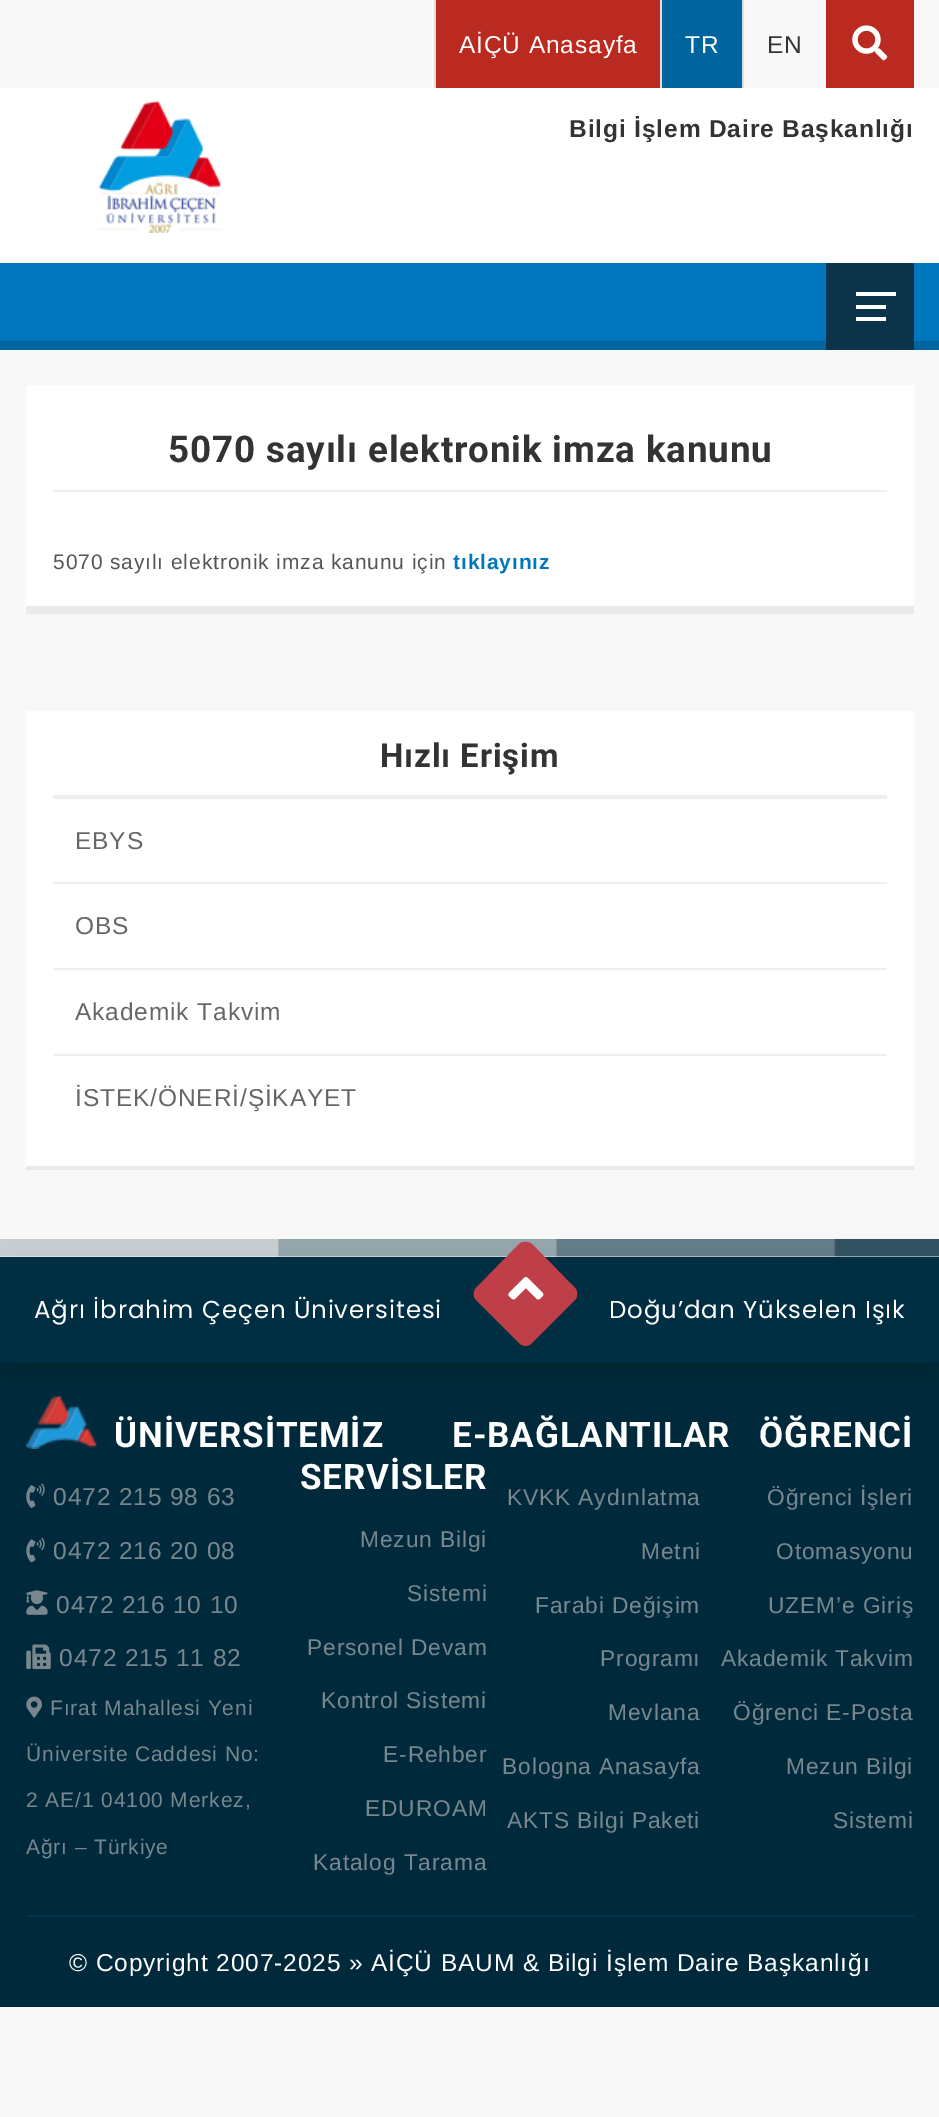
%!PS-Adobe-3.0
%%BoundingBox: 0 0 939 2117
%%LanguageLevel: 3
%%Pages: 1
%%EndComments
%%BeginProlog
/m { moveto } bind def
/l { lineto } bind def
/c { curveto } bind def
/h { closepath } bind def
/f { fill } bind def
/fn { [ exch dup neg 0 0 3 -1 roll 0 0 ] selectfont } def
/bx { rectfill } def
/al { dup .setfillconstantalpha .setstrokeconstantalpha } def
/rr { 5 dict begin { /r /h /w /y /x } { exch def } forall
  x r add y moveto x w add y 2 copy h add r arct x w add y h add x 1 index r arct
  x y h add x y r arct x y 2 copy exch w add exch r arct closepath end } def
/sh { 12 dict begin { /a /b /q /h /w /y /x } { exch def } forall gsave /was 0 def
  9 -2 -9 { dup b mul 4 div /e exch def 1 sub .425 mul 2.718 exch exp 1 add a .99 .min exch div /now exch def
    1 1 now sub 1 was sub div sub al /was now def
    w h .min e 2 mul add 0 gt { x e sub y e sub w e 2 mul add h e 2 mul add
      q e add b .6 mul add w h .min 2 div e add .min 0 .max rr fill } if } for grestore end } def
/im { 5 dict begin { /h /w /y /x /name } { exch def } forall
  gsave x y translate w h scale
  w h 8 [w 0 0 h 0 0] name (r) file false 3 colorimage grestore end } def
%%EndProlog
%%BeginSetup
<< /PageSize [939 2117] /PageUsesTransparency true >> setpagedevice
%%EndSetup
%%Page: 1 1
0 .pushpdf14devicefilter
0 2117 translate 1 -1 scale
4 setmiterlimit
0.973 setgray
0 0 939 2117 bx
0.91 setgray
26 1169 888 1 bx
0.733 0.165 0.125 setrgbcolor
436 0 224 88 bx
0.867 setgray
434 0 2 88 bx
/LiberationSans-Regular 24.5 fn
1 setgray
459 53 m 0.88 0 (AİÇÜ Anasayfa) ashow
0 0.392 0.624 setrgbcolor
662 0 80 88 bx
0.867 setgray
660 0 2 88 bx
1 setgray
685 53 m 0.88 0 (TR) ashow
0.867 setgray
742 0 2 88 bx
0.2 setgray
767 53 m 0.88 0 (EN) ashow
0.733 0.165 0.125 setrgbcolor
826 0 88 88 bx
(image0.raw) 852 25 36 36 im
1 setgray
0 88 939 175 bx
(image1.raw) 98 101 123 132 im
/LiberationSans-Bold 24.5 fn
0.2 setgray
569 137 m 0.88 0 (Bilgi İşlem Daire Başkanlığı) ashow
0 0.463 0.737 setrgbcolor
0 263 939 78 bx
0 0.392 0.624 setrgbcolor
0 341 939 9 bx
0.043 0.2 0.29 setrgbcolor
826 263 88 87 bx
1 setgray
856 305 30 4 bx
856 292 40 4 bx
856 317 30 4 bx
26 385 888 221 bx
0.918 setgray
26 606 888 8 bx
0.933 setgray
53 490 834 2 bx
/Roboto-Bold 36.75 fn
0.2 setgray
168 462 m 0.88 0 (5070 sayılı elektronik imza kanunu) ashow
/LiberationSans-Regular 21 fn
0.333 setgray
53 569 m 0.88 0 (5070 sayılı elektronik imza kanunu için) ashow
/LiberationSans-Bold 21 fn
0 0.463 0.737 setrgbcolor
453 569 m 0.88 0 (tıklayınız) ashow
1 setgray
26 711 888 455 bx
0.918 setgray
26 1166 888 3 bx
0.933 setgray
53 795 834 4 bx
/Roboto-Bold 33 fn
0.2 setgray
380 767 m 0.88 0 (Hızlı Erişim) ashow
0.933 setgray
53 882 834 2 bx
/LiberationSans-Regular 24.5 fn
0.4 setgray
75 849 m 0.88 0 (EBYS) ashow
0.933 setgray
53 968 834 2 bx
0.4 setgray
75 934 m 0.88 0 (OBS) ashow
0.933 setgray
53 1054 834 2 bx
0.4 setgray
75 1020 m 0.88 0 (Akademik Takvim) ashow
75 1106 m 0.88 0 (İSTEK/ÖNERİ/ŞİKAYET) ashow
0 0.165 0.235 setrgbcolor
0 1362 939 645 bx
0.004 0.11 0.153 setrgbcolor
0 1283 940 105 0 17.5 0.39 sh
(image2.raw) 0 1239 939 18 im
0 0.18 0.259 setrgbcolor
0 1257 939 105 bx
/Poppins-Regular 24.5 fn
1 setgray
34 1318 m 0.88 0 (Ağrı İbrahim Çeçen Üniversitesi) ashow
0.745 0.247 0.282 setrgbcolor
532 1244 m 575 1288 l 578 1291 578 1297 575 1300 c 532 1343 l 528 1347 523 1347 519 1343 c 476 1300 l 473 1297 473 1291 476 1288 c 519 1244 l 523 1241 528 1241 532 1244 c h f
(image3.raw) 508 1277 36 23 im
1 setgray
609 1318 m 0.88 0 (Doğu’dan Yükselen Işık) ashow
(image4.raw) 26 1396 71 53 im
/Roboto-Bold 35 fn
114 1447 m 0.88 0 (ÜNİVERSİTEMİZ) ashow
(image5.raw) 26 1483 19 25 im
/LiberationSans-Regular 24.5 fn
0.471 0.529 0.557 setrgbcolor
53 1505 m 0.88 0 (0472 215 98 63) ashow
(image6.raw) 26 1537 19 26 im
53 1559 m 0.88 0 (0472 216 20 08) ashow
(image7.raw) 26 1590 22 25 im
56 1613 m 0.88 0 (0472 216 10 10) ashow
(image8.raw) 26 1644 25 26 im
59 1666 m 0.88 0 (0472 215 11 82) ashow
(image9.raw) 26 1696 16 22 im
/LiberationSans-Regular 21 fn
50 1715 m 0.88 0 (Fırat Mahallesi Yeni) ashow
26 1761 m 0.88 0 (Üniversite Caddesi No:) ashow
26 1807 m 0.88 0 (2 AE/1 04100 Merkez,) ashow
26 1854 m 0.88 0 (Ağrı – Türkiye) ashow
/Roboto-Bold 35 fn
1 setgray
452 1447 m 0.88 0 (E-BAĞLANTILAR) ashow
300 1489 m 0.88 0 (SERVİSLER) ashow
/LiberationSans-Regular 22.75 fn
0.471 0.529 0.557 setrgbcolor
360 1547 m 0.88 0 (Mezun Bilgi) ashow
407 1601 m 0.88 0 (Sistemi) ashow
307 1655 m 0.88 0 (Personel Devam) ashow
321 1708 m 0.88 0 (Kontrol Sistemi) ashow
383 1762 m 0.88 0 (E-Rehber) ashow
365 1816 m 0.88 0 (EDUROAM) ashow
313 1870 m 0.88 0 (Katalog Tarama) ashow
/Roboto-Bold 35 fn
1 setgray
759 1447 m 0.88 0 (ÖĞRENCİ) ashow
/LiberationSans-Regular 22.75 fn
0.471 0.529 0.557 setrgbcolor
767 1505 m 0.88 0 (Öğrenci İşleri) ashow
776 1559 m 0.88 0 (Otomasyonu) ashow
768 1613 m 0.88 0 (UZEM’e Giriş) ashow
721 1666 m 0.88 0 (Akademik Takvim) ashow
733 1720 m 0.88 0 (Öğrenci E-Posta) ashow
786 1774 m 0.88 0 (Mezun Bilgi) ashow
833 1828 m 0.88 0 (Sistemi) ashow
507 1505 m 0.88 0 (KVKK Aydınlatma) ashow
641 1559 m 0.88 0 (Metni) ashow
535 1613 m 0.88 0 (Farabi Değişim) ashow
600 1666 m 0.88 0 (Programı) ashow
608 1720 m 0.88 0 (Mevlana) ashow
502 1774 m 0.88 0 (Bologna Anasayfa) ashow
507 1828 m 0.88 0 (AKTS Bilgi Paketi) ashow
0 0.204 0.29 setrgbcolor
26 1915 888 2 bx
/LiberationSans-Regular 24.5 fn
1 setgray
69 1971 m 0.88 0 (© Copyright 2007-2025 » AİÇÜ BAUM & Bilgi İşlem Daire Başkanlığı) ashow
.poppdf14devicefilter showpage
%%EOF
